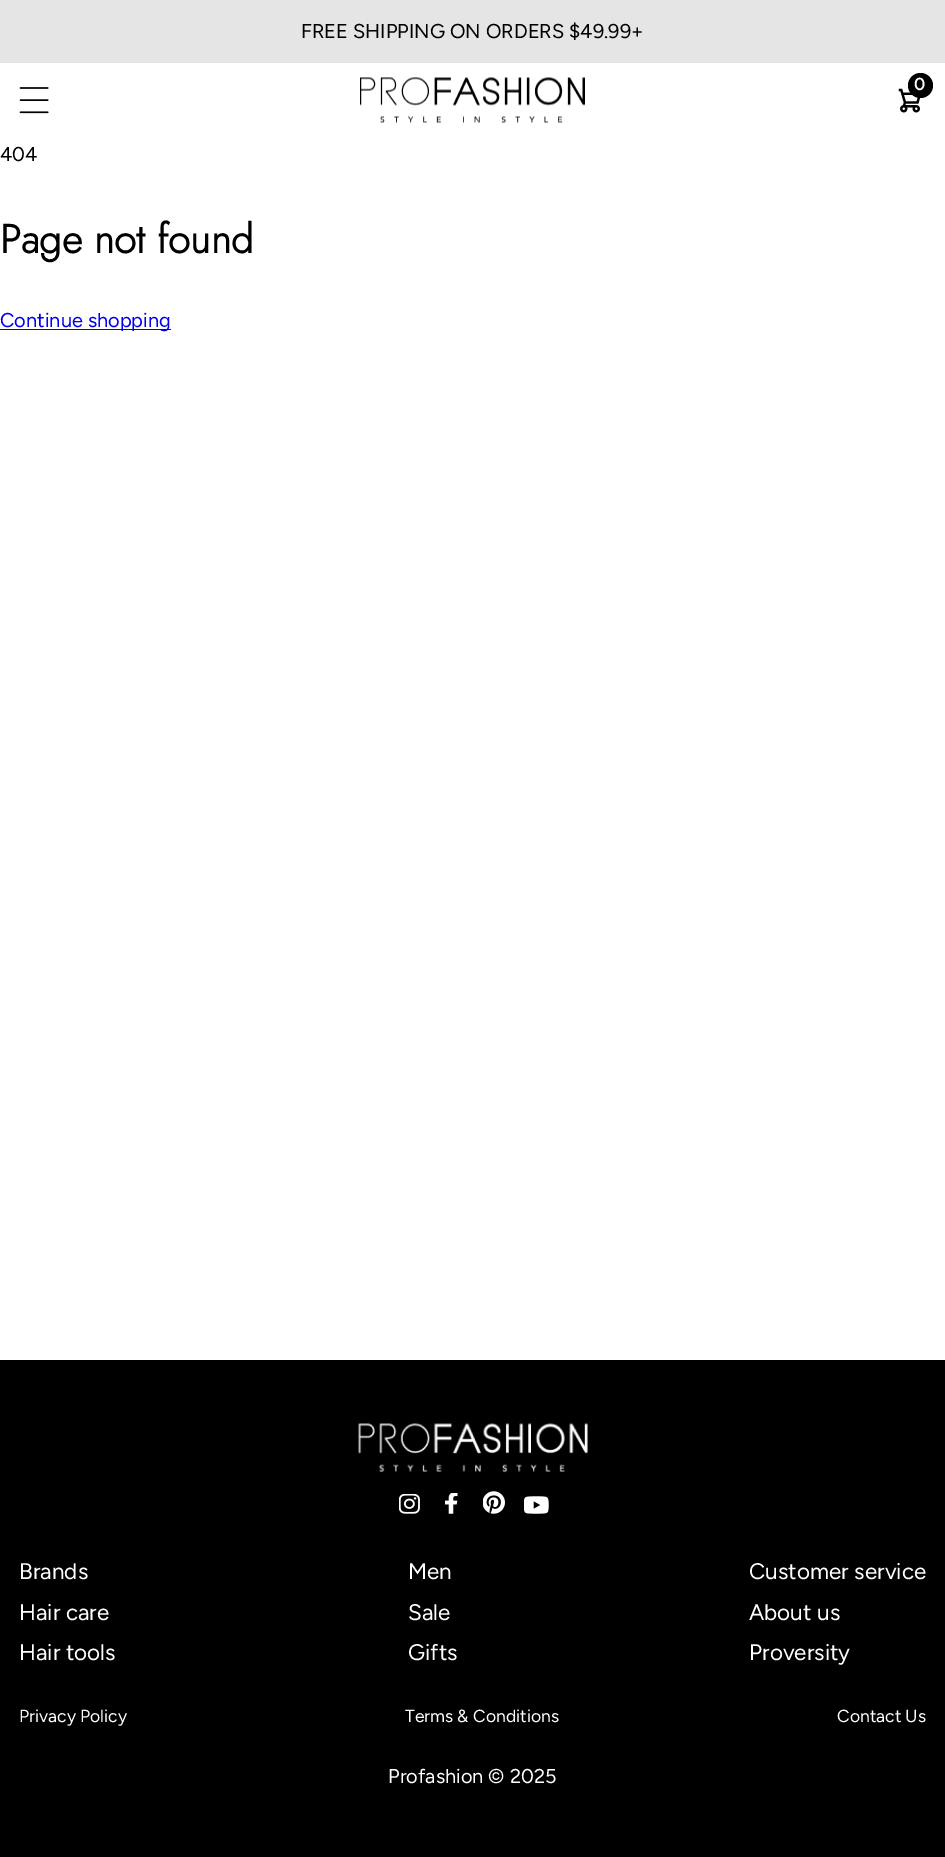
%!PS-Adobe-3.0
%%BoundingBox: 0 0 945 1857
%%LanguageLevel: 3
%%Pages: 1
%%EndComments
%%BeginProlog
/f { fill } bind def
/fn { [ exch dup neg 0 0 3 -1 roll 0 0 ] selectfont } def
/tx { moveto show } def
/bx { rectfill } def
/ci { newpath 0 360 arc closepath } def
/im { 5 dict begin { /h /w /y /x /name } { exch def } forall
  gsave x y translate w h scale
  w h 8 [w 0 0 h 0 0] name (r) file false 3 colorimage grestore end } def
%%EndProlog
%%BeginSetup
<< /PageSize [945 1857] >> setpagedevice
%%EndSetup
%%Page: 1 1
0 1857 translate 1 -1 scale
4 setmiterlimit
1 setgray
0 0 945 1857 bx
0.898 setgray
0 0 945 63 bx
/Figtree-Regular 20 fn
0 setgray
(FREE SHIPPING ON ORDERS $49.99+) 301 38 tx
(image0.raw) 360 77 225 46 im
(image1.raw) 898 88 23 25 im
920.5 85.5 12.5 ci f
/Figtree-SemiBold 17.5 fn
1 setgray
(0) 914 90 tx
(image2.raw) 19 87 30 27 im
/Figtree-Regular 20 fn
0 setgray
(404) 0 161 tx
/Jost-Bold 40 fn
(Page not found) 0 253 tx
0 0 0.933 setrgbcolor
0 329 171 1 bx
/Figtree-Regular 20 fn
(Continue shopping) 0 327 tx
0 setgray
0 1360 945 497 bx
(image3.raw) 358 1423 230 50 im
(image4.raw) 399 1494 21 20 im
(image5.raw) 445 1493 13 21 im
(image6.raw) 483 1491 22 23 im
(image7.raw) 524 1496 25 18 im
/Figtree-Regular 22.5 fn
1 setgray
(Brands) 19 1579 tx
(Hair care) 19 1620 tx
(Hair tools) 19 1660 tx
(Men) 408 1579 tx
(Sale) 408 1620 tx
(Gifts) 408 1660 tx
(Customer service) 749 1579 tx
(About us) 749 1620 tx
(Proversity) 749 1660 tx
/Figtree-Regular 17.5 fn
(Privacy Policy) 19 1722 tx
(Terms & Conditions) 405 1722 tx
(Contact Us) 837 1722 tx
/Figtree-Regular 20 fn
(Profashion © 2025) 388 1783 tx
showpage
%%EOF
